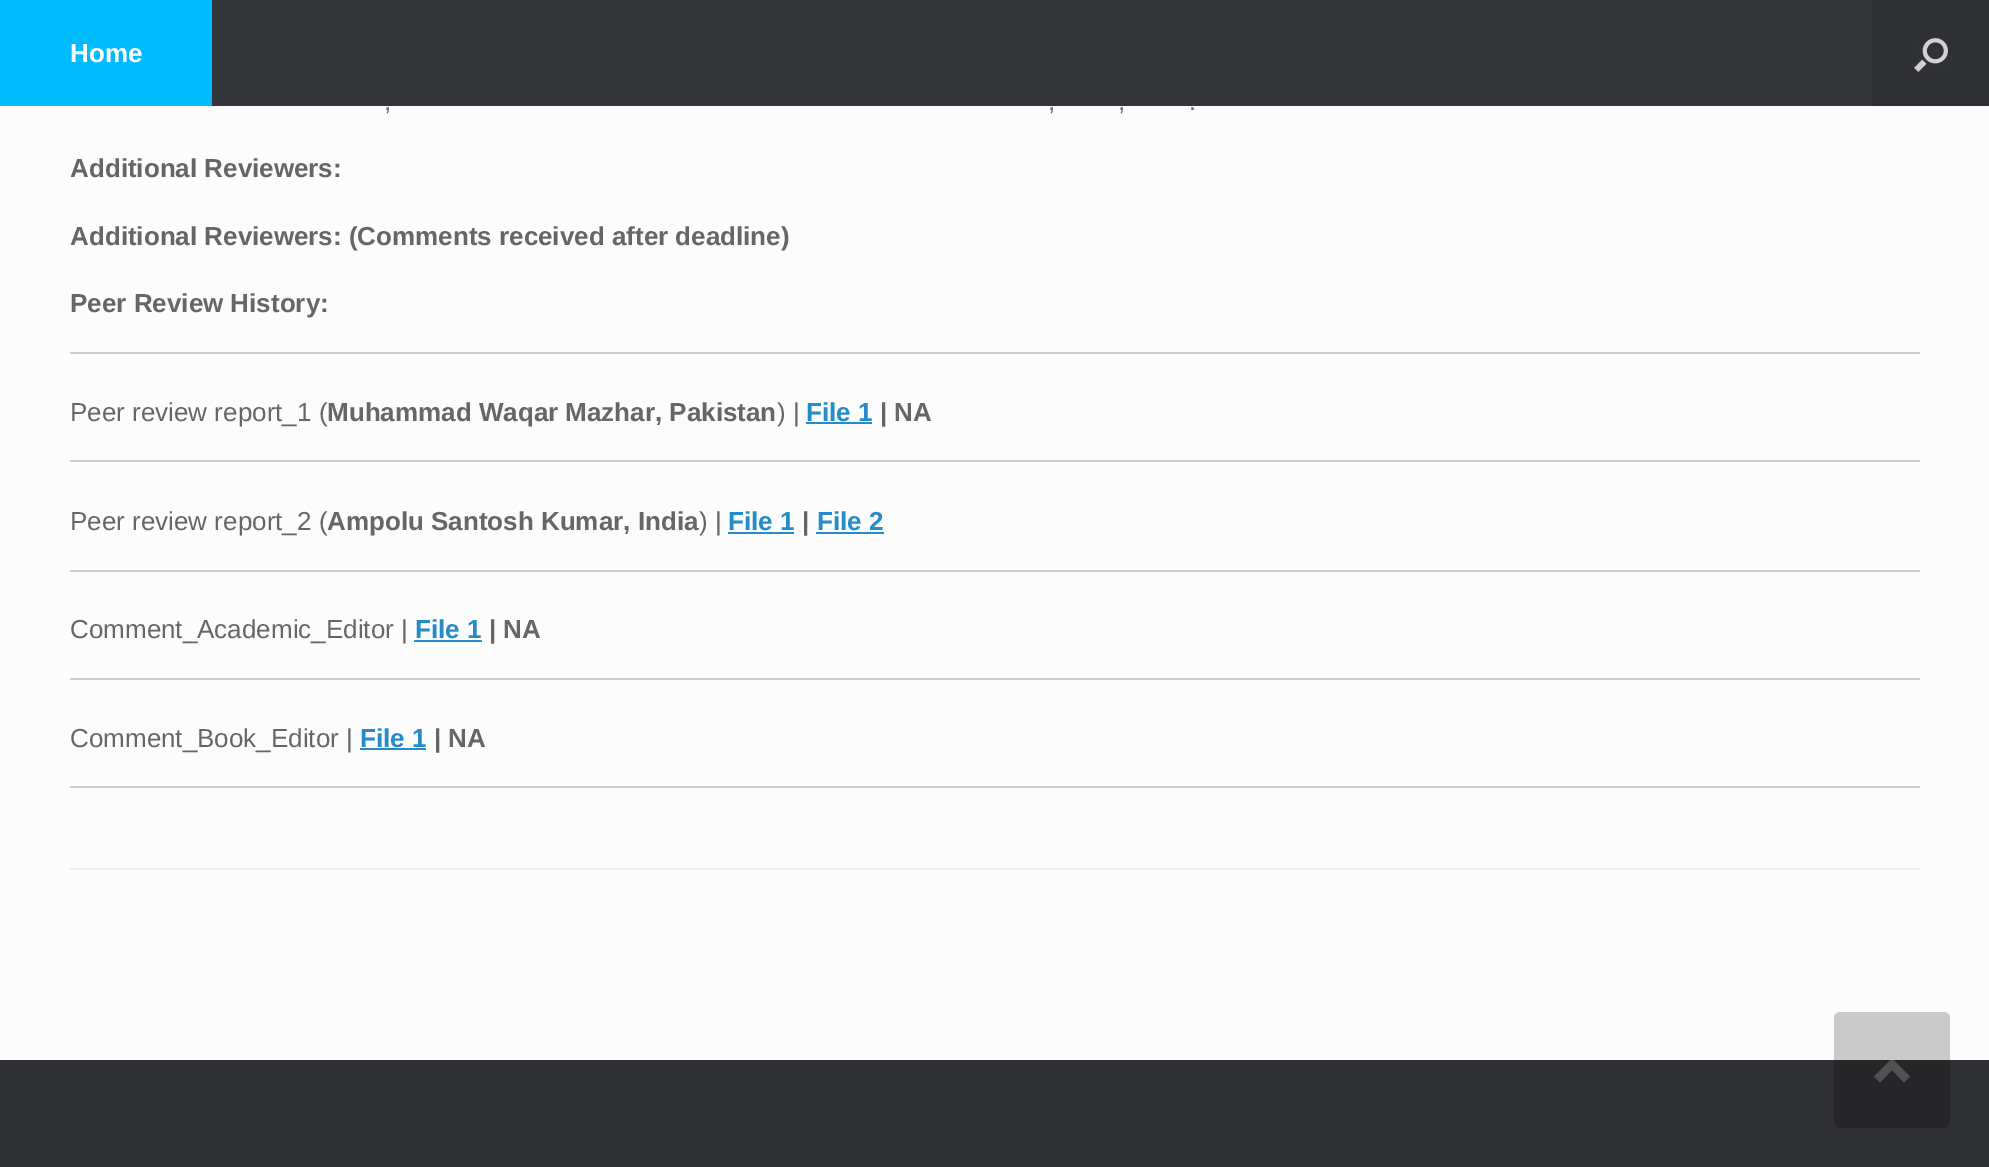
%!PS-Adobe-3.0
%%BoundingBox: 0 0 1989 1167
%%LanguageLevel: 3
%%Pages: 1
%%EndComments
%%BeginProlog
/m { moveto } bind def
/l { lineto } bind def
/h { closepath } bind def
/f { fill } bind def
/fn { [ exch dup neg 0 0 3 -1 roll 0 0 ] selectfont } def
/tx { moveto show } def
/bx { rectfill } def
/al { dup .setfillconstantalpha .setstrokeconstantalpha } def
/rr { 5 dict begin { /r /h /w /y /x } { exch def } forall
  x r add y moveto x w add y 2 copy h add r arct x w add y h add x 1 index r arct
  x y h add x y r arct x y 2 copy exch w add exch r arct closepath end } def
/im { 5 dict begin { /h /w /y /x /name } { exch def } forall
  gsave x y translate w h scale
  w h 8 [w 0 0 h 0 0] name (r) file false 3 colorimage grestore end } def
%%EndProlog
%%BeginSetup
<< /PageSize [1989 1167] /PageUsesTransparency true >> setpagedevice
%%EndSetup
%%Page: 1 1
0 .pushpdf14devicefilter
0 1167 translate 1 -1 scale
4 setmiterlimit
0.184 0.188 0.2 setrgbcolor
0 0 1989 1167 bx
0.204 0.208 0.22 setrgbcolor
212 0 1660 106 bx
0 0.737 1 setrgbcolor
0 0 212 106 bx
/LiberationSans-Bold 26 fn
1 setgray
(Home) 70 62 tx
(image0.raw) 1914 38 34 34 im
0.988 setgray
0 106 1989 954 bx
0.933 setgray
70 868 1850 2 bx
/LiberationSans-Regular 26 fn
0.4 setgray
(,) 384 110 tx
(,) 1048 110 tx
(,) 1118 110 tx
(.) 1189 110 tx
/LiberationSans-Bold 26 fn
(Additional Reviewers:) 70 177 tx
(Additional Reviewers: \(Comments received after deadline\)) 70 245 tx
(Peer Review History:) 70 312 tx
0.8 setgray
70 352 1850 2 bx
/LiberationSans-Regular 26 fn
0.4 setgray
(Peer review report_1 \() 70 421 tx
/LiberationSans-Bold 26 fn
(Muhammad Waqar Mazhar, Pakistan) 327 421 tx
/LiberationSans-Regular 26 fn
(\) |) 777 421 tx
/LiberationSans-Bold 26 fn
0.141 0.549 0.784 setrgbcolor
(File 1) 806 421 tx
806 422 66 2 bx
0.4 setgray
(| NA) 880 421 tx
0.8 setgray
70 460 1850 2 bx
/LiberationSans-Regular 26 fn
0.4 setgray
(Peer review report_2 \() 70 530 tx
/LiberationSans-Bold 26 fn
(Ampolu Santosh Kumar, India) 327 530 tx
/LiberationSans-Regular 26 fn
(\) |) 699 530 tx
/LiberationSans-Bold 26 fn
0.141 0.549 0.784 setrgbcolor
(File 1) 728 530 tx
728 532 66 2 bx
0.4 setgray
(|) 802 530 tx
0.141 0.549 0.784 setrgbcolor
(File 2) 817 530 tx
816 532 68 2 bx
0.8 setgray
70 570 1850 2 bx
/LiberationSans-Regular 26 fn
0.4 setgray
(Comment_Academic_Editor |) 70 638 tx
/LiberationSans-Bold 26 fn
0.141 0.549 0.784 setrgbcolor
(File 1) 415 638 tx
414 640 68 2 bx
0.4 setgray
(| NA) 489 638 tx
0.8 setgray
70 678 1850 2 bx
/LiberationSans-Regular 26 fn
0.4 setgray
(Comment_Book_Editor |) 70 747 tx
/LiberationSans-Bold 26 fn
0.141 0.549 0.784 setrgbcolor
(File 1) 360 747 tx
360 748 66 2 bx
0.4 setgray
(| NA) 434 747 tx
0.8 setgray
70 786 1850 2 bx
0.2 al
0 setgray
1834 1012 116 116 6 rr f
1 setgray
1910 1076.5 m 1892 1058.5 l 1874 1076.5 l 1880 1082.5 l 1892 1070 l 1904 1082.5 l h f
.poppdf14devicefilter showpage
%%EOF
